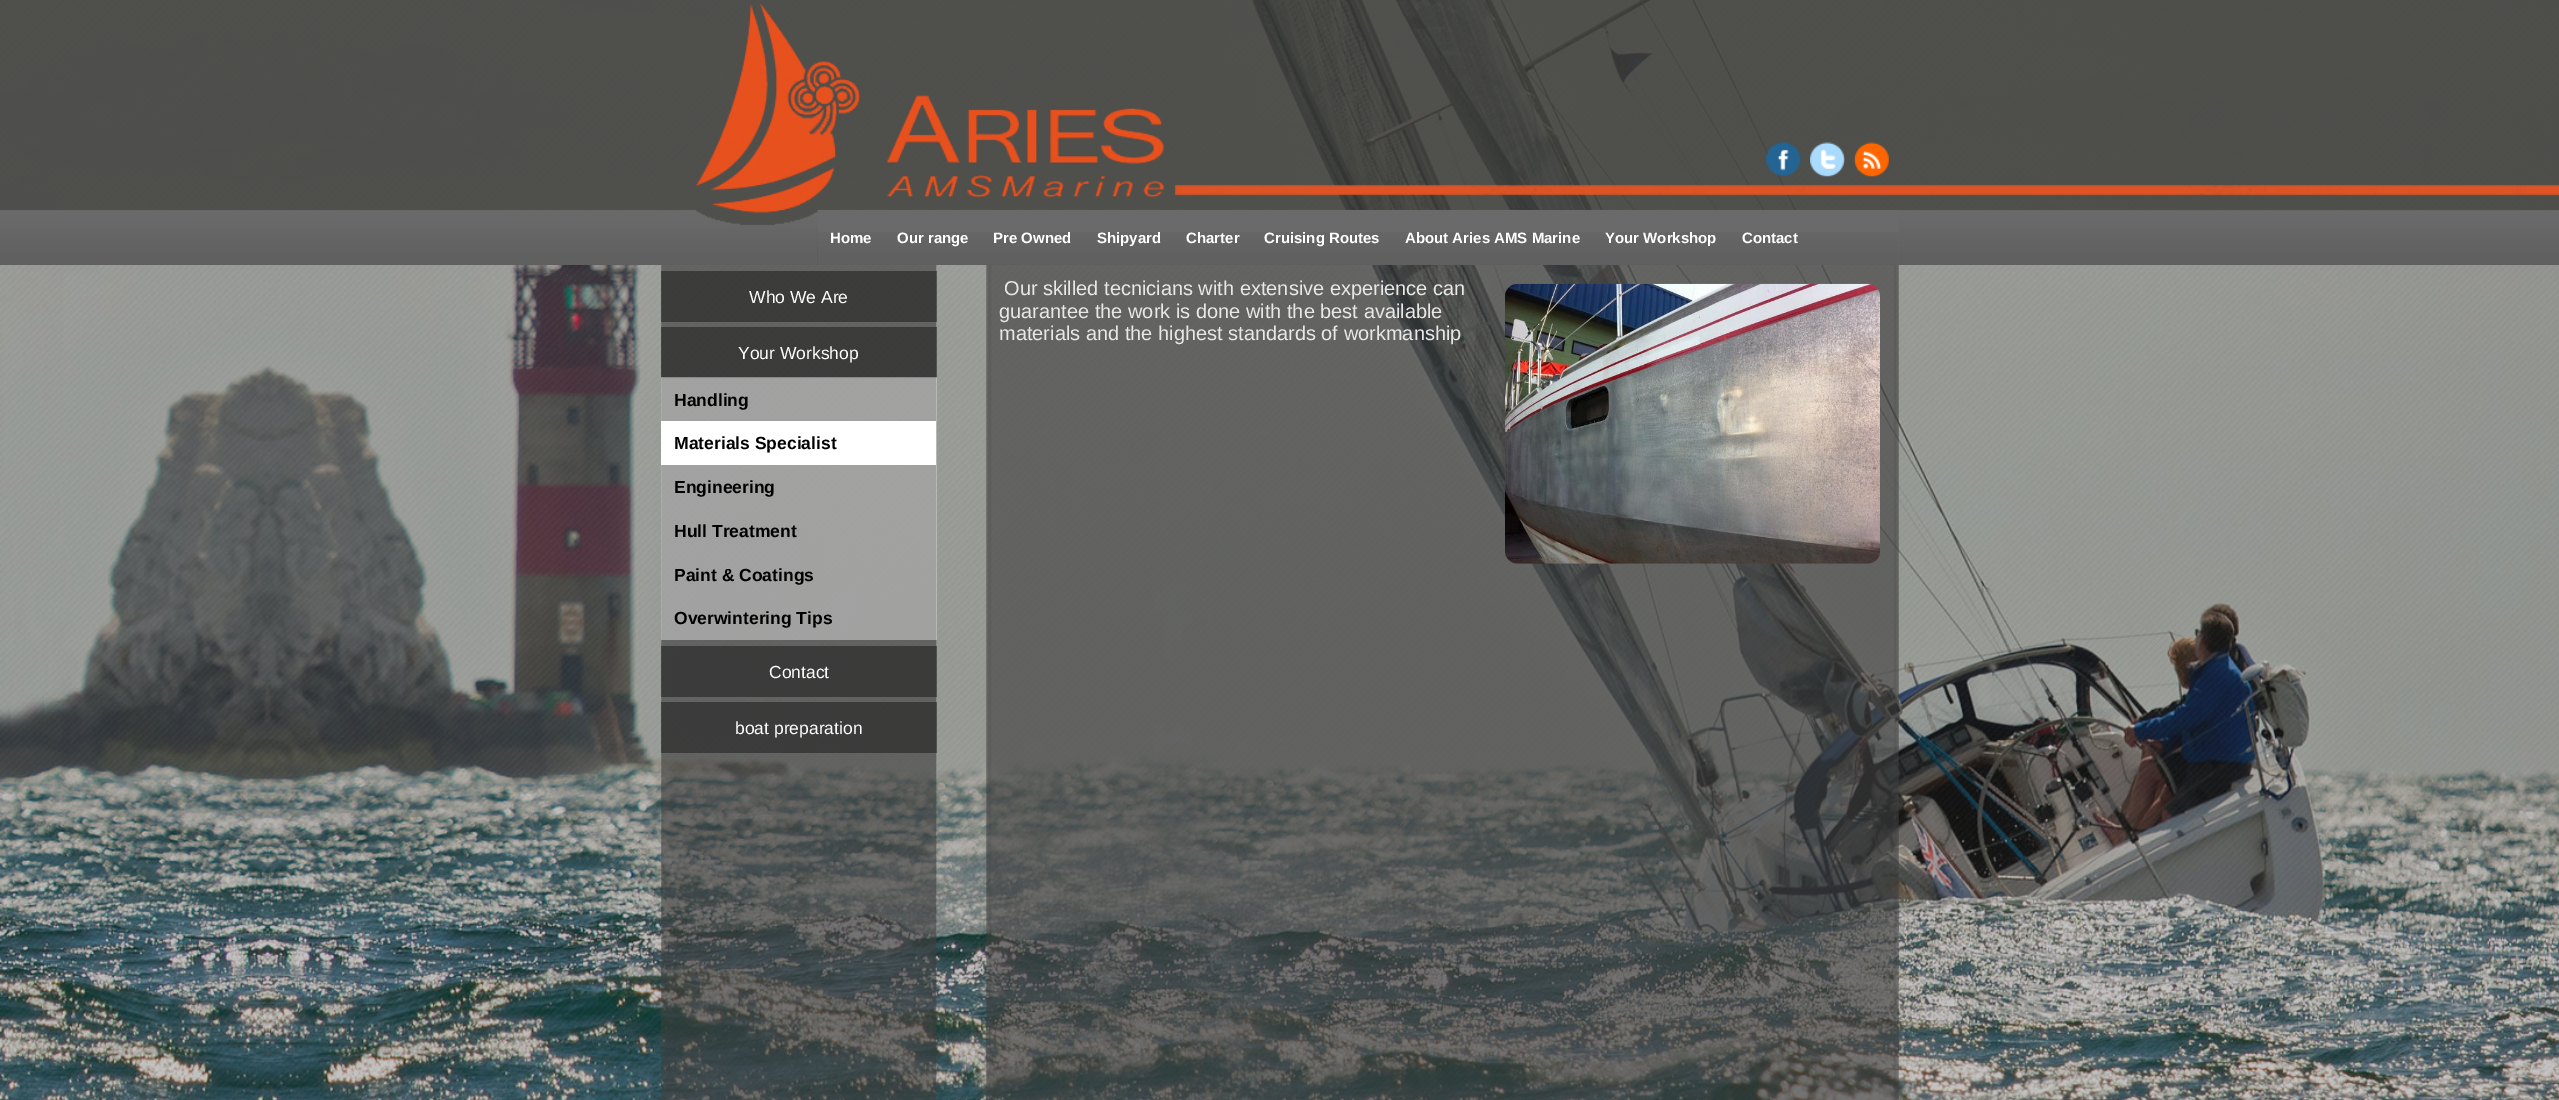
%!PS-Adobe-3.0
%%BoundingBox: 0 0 2559 1100
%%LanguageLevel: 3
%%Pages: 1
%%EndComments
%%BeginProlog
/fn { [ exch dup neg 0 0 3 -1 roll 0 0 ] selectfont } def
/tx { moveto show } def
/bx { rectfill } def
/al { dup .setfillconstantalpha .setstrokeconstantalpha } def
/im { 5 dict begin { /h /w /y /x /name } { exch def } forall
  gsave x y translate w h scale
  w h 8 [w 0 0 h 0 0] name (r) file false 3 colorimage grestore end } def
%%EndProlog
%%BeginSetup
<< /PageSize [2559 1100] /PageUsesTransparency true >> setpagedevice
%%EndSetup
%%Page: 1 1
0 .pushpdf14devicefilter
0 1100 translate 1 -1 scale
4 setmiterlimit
1 setgray
0 0 2559 1100 bx
(image0.raw) 0 0 2559 1100 im
(image4.raw) 0 0 2559 265 im
(image1.raw) 1766 142 35 35 im
(image2.raw) 1810 142 35 35 im
(image3.raw) 1853 142 36 35 im
0.416 setgray
818 210 1081 55 bx
(image5.raw) 817 232 1082 33 im
/LiberationSans-Bold 15 fn
1 setgray
(Home) 830 243 tx
(Our range) 897 243 tx
(Pre Owned) 993 243 tx
(Shipyard) 1097 243 tx
(Charter) 1186 243 tx
(Cruising Routes) 1264 243 tx
(About Aries AMS Marine) 1405 243 tx
(Your Workshop) 1605 243 tx
(Contact) 1742 243 tx
(image6.raw) 661 265 1238 835 im
0.4 al
0 setgray
661 271 276 51 bx
/LiberationSans-Regular 17.5 fn
1 al
1 setgray
(Who We Are) 749 303 tx
0.4 al
0 setgray
661 327 276 51 bx
1 al
1 setgray
(Your Workshop) 738 359 tx
0.4 al
661 377 276 263 bx
/LiberationSans-Bold 17.5 fn
1 al
0 setgray
(Handling) 674 406 tx
1 setgray
661 421 275 44 bx
0 setgray
(Materials Specialist) 674 449 tx
(Engineering) 674 493 tx
(Hull Treatment) 674 537 tx
(Paint & Coatings) 674 581 tx
(Overwintering Tips) 674 624 tx
0.4 al
661 646 276 51 bx
/LiberationSans-Regular 17.5 fn
1 al
1 setgray
(Contact) 769 678 tx
0.4 al
0 setgray
661 702 276 51 bx
1 al
1 setgray
(boat preparation) 735 734 tx
/LiberationSans-Regular 20 fn
0.91 setgray
(Our skilled tecnicians with extensive experience can) 1004 295 tx
(guarantee the work is done with the best available) 999 318 tx
(materials and the highest standards of workmanship) 999 340 tx
(image7.raw) 1505 283 375 281 im
.poppdf14devicefilter showpage
%%EOF
